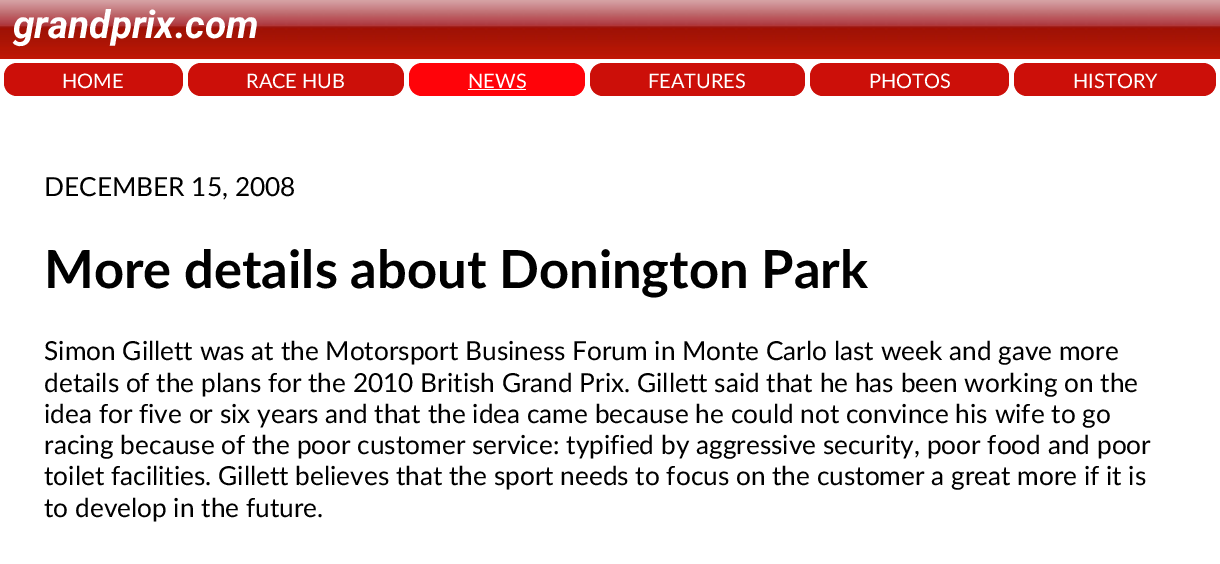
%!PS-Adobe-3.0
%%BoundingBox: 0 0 1220 564
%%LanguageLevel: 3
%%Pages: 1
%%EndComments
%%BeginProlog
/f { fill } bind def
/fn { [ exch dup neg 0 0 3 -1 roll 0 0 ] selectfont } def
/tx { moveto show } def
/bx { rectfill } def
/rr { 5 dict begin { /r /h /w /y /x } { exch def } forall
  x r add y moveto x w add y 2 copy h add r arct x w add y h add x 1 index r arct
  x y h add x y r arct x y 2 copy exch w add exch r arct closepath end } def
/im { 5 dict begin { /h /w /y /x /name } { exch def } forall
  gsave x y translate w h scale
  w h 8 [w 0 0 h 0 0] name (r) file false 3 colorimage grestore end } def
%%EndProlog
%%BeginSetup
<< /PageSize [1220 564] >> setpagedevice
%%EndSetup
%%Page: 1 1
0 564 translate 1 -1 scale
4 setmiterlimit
1 setgray
0 0 1220 564 bx
(image0.raw) 0 0 1220 59 im
/Roboto-BoldItalic 38.75 fn
(grandprix.com) 13 38 tx
0.8 0.059 0.035 setrgbcolor
4 63 179 33 13 rr f
/Lato-Regular 20 fn
1 setgray
(HOME) 62 88 tx
0.8 0.059 0.035 setrgbcolor
188 63 216 33 13 rr f
1 setgray
(RACE HUB) 246 88 tx
1 0.012 0.035 setrgbcolor
409 63 176 33 13 rr f
1 setgray
(NEWS) 468 88 tx
468 89 58 1 bx
0.8 0.059 0.035 setrgbcolor
590 63 215 33 13 rr f
1 setgray
(FEATURES) 648 88 tx
0.8 0.059 0.035 setrgbcolor
810 63 199 33 13 rr f
1 setgray
(PHOTOS) 869 88 tx
0.8 0.059 0.035 setrgbcolor
1014 63 202 33 13 rr f
1 setgray
(HISTORY) 1073 88 tx
/Lato-Regular 26.25 fn
0 setgray
(DECEMBER 15, 2008) 44 196 tx
/Lato-Bold 52.5 fn
(More details about Donington Park) 44 288 tx
/Lato-Regular 26.25 fn
(Simon Gillett was at the Motorsport Business Forum in Monte Carlo last week and gave more) 44 360 tx
(details of the plans for the 2010 British Grand Prix. Gillett said that he has been working on the) 44 392 tx
(idea for five or six years and that the idea came because he could not convince his wife to go) 44 423 tx
(racing because of the poor customer service: typified by aggressive security, poor food and poor) 44 454 tx
(toilet facilities. Gillett believes that the sport needs to focus on the customer a great more if it is) 44 485 tx
(to develop in the future.) 44 517 tx
showpage
%%EOF
